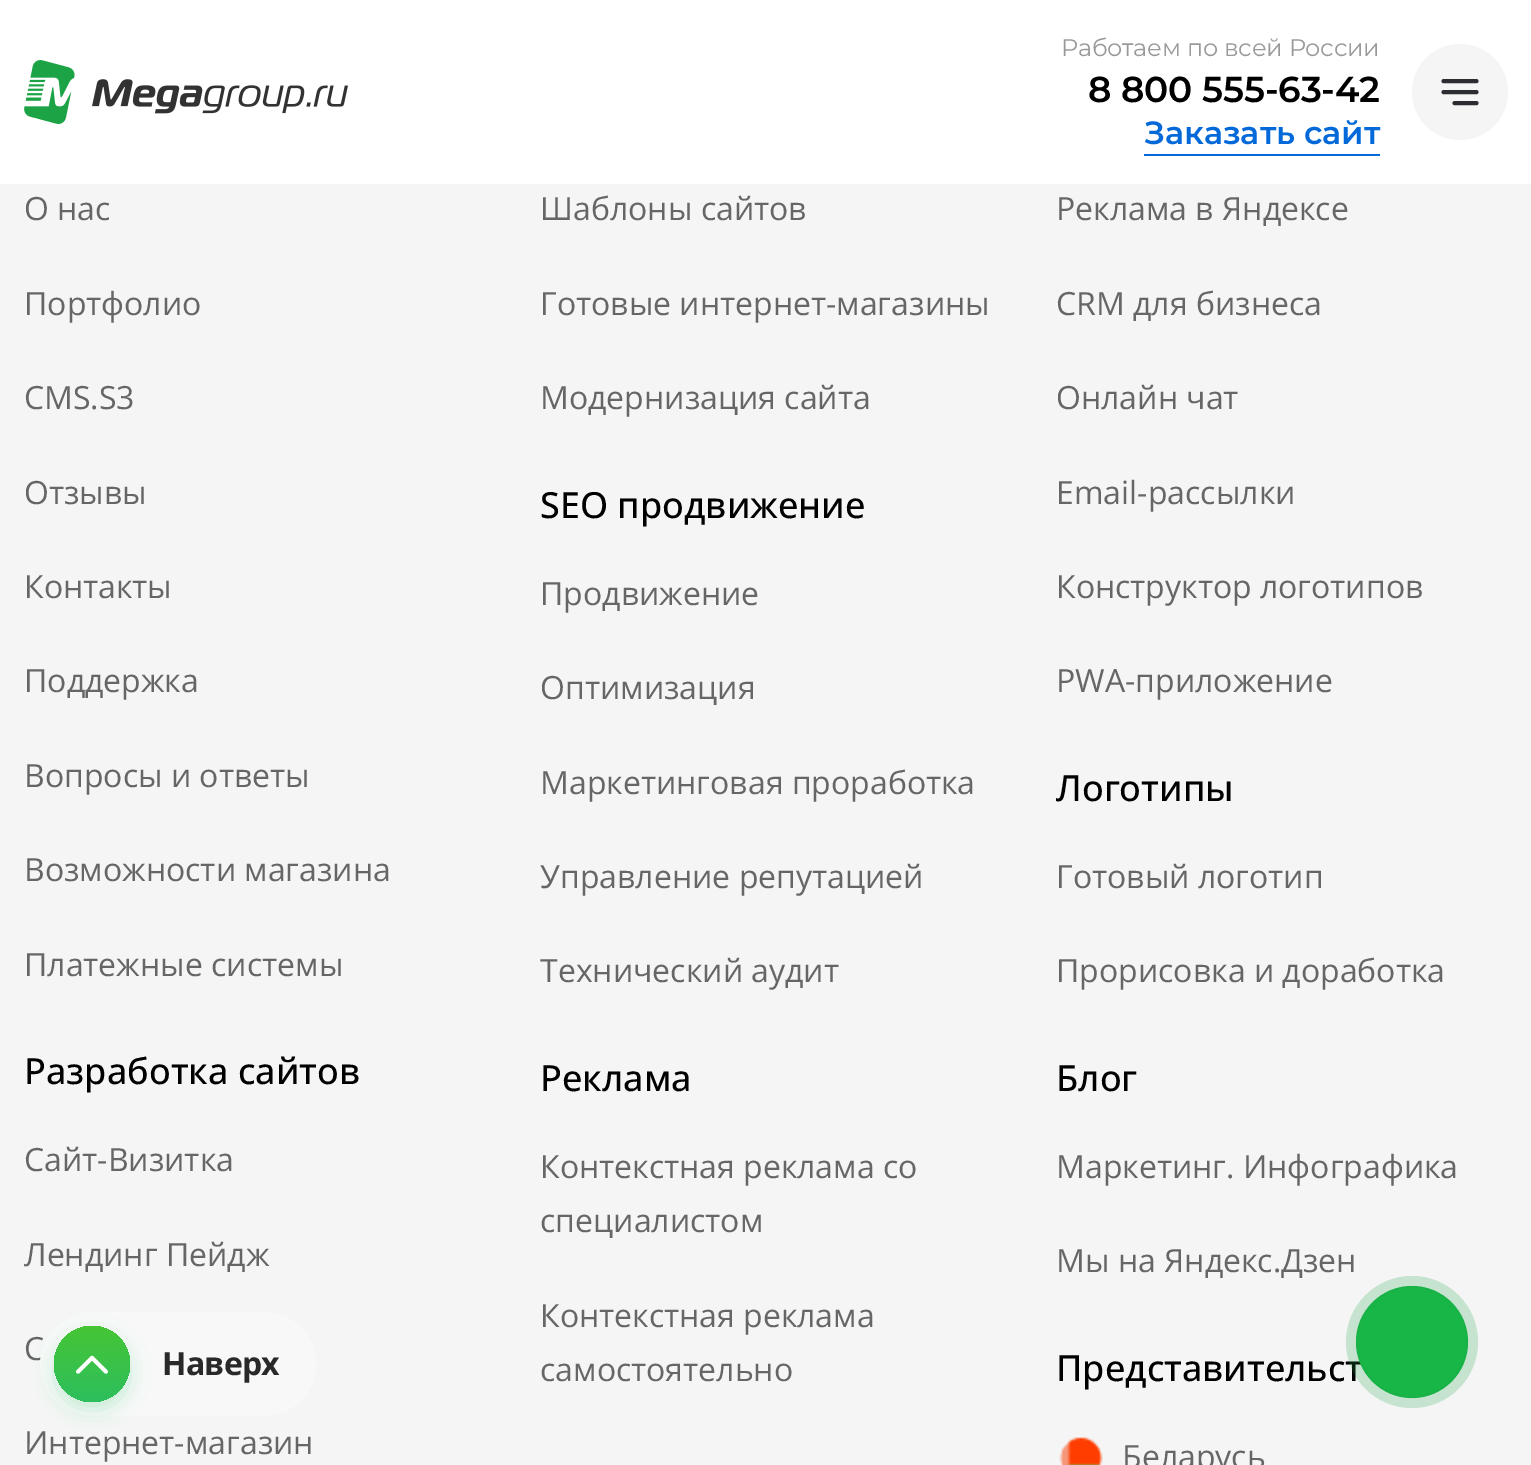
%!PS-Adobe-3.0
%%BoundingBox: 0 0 1531 1465
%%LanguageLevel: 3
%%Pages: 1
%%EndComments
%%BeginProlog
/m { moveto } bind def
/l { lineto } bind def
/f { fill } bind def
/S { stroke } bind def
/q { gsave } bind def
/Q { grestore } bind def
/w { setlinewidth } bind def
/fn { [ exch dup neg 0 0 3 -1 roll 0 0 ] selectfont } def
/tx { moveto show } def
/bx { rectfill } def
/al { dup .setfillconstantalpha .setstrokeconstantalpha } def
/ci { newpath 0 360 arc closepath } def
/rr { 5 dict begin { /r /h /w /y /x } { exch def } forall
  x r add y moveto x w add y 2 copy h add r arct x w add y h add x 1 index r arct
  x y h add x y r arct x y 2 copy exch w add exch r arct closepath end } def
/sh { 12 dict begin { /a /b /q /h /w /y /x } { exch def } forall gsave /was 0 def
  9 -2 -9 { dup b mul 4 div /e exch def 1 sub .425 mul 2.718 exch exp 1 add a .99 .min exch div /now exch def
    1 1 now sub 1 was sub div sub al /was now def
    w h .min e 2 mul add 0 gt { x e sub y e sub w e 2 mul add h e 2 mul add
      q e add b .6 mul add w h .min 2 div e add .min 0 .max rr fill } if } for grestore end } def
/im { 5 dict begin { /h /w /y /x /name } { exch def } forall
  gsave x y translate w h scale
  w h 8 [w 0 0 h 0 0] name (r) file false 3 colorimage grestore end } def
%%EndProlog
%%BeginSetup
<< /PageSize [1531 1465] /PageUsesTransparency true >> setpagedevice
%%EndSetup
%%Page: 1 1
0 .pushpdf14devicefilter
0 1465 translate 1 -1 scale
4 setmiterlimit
0.957 0.961 0.957 setrgbcolor
0 0 1531 1465 bx
1 setgray
0 0 1531 184 bx
(image0.raw) 24 60 324 64 im
/Montserrat-Regular 24 fn
0.6 setgray
1061 56 m -0.2 0 (Работаем по всей России) ashow
/Montserrat-SemiBold 36 fn
0 setgray
1088 102 m -0.2 0 (8 800 555-63-42) ashow
/Montserrat-SemiBold 32 fn
0.012 0.412 0.851 setrgbcolor
(Заказать сайт) 1144 144 tx
1144 154 236 2 bx
0.961 setgray
1460 92 48 ci f
0.169 0.176 0.2 setrgbcolor
4 w
1 setlinecap
1 setlinejoin
1443.5 92 m 1476.5 92 l 1443.5 81 m 1476.5 81 l 1454.5 103 m 1476.5 103 l S
/OpenSans-Regular 32 fn
0.4 setgray
(О нас) 24 220 tx
(Портфолио) 24 315 tx
(CMS.S3) 24 409 tx
(Отзывы) 24 504 tx
(Контакты) 24 598 tx
(Поддержка) 24 692 tx
(Вопросы и ответы) 24 787 tx
(Возможности магазина) 24 881 tx
(Платежные системы) 24 976 tx
/OpenSans-Medium 36 fn
0 setgray
(Разработка сайтов) 24 1084 tx
/OpenSans-Regular 32 fn
0.4 setgray
(Сайт-Визитка) 24 1171 tx
(Лендинг Пейдж) 24 1266 tx
(С) 24 1360 tx
(Интернет-магазин) 24 1454 tx
(Шаблоны сайтов) 540 220 tx
(Готовые интернет-магазины) 540 315 tx
(Модернизация сайта) 540 409 tx
/OpenSans-Medium 36 fn
0 setgray
(SEO продвижение) 540 518 tx
/OpenSans-Regular 32 fn
0.4 setgray
(Продвижение) 540 605 tx
(Оптимизация) 540 699 tx
(Маркетинговая проработка) 540 794 tx
(Управление репутацией) 540 888 tx
(Технический аудит) 540 982 tx
/OpenSans-Medium 36 fn
0 setgray
(Реклама) 540 1091 tx
/OpenSans-Regular 32 fn
0.4 setgray
(Контекстная реклама со) 540 1178 tx
(специалистом) 540 1232 tx
(Контекстная реклама) 540 1327 tx
(самостоятельно) 540 1381 tx
(Реклама в Яндексе) 1056 220 tx
(CRM для бизнеса) 1056 315 tx
(Онлайн чат) 1056 409 tx
(Email-рассылки) 1056 504 tx
(Конструктор логотипов) 1056 598 tx
(PWA-приложение) 1056 692 tx
/OpenSans-Medium 36 fn
0 setgray
(Логотипы) 1056 801 tx
/OpenSans-Regular 32 fn
0.4 setgray
(Готовый логотип) 1056 888 tx
(Прорисовка и доработка) 1056 982 tx
/OpenSans-Medium 36 fn
0 setgray
(Блог) 1056 1091 tx
/OpenSans-Regular 32 fn
0.4 setgray
(Маркетинг. Инфографика) 1056 1178 tx
(Мы на Яндекс.Дзен) 1056 1272 tx
/OpenSans-Medium 36 fn
0 setgray
(Представительст) 1056 1381 tx
(image1.raw) 1059 1437 44 28 im
/OpenSans-Regular 32 fn
0.4 setgray
(Беларусь) 1122 1468 tx
0.973 setgray
41 1313 274 102 51 rr q f Q
2 w
0 setlinecap
0 setlinejoin
S
0.176 0.749 0.369 setrgbcolor
54 1334 76 76 38 10 0.24 sh
q 92 1364 38 ci clip newpath
<< /ShadingType 2 /ColorSpace /DeviceRGB /Coords [92 1326 92 1402] /Extend [true true] /Function << /FunctionType 2 /Domain [0 1] /C0 [0.275 0.773 0.204] /C1 [0.176 0.749 0.369] /N 1 >> >> shfill Q
(image2.raw) 76 1355 32 19 im
/OpenSans-Bold 32 fn
0.161 setgray
162 1375 m -0.75 0 (Наверх) ashow
0.082 0.733 0.278 setrgbcolor
1412 1342 56 ci f
0.22 al
0.11 0.639 0.271 setrgbcolor
1412 1342 66 ci f
1412 1342 55 ci S
.poppdf14devicefilter showpage
%%EOF
